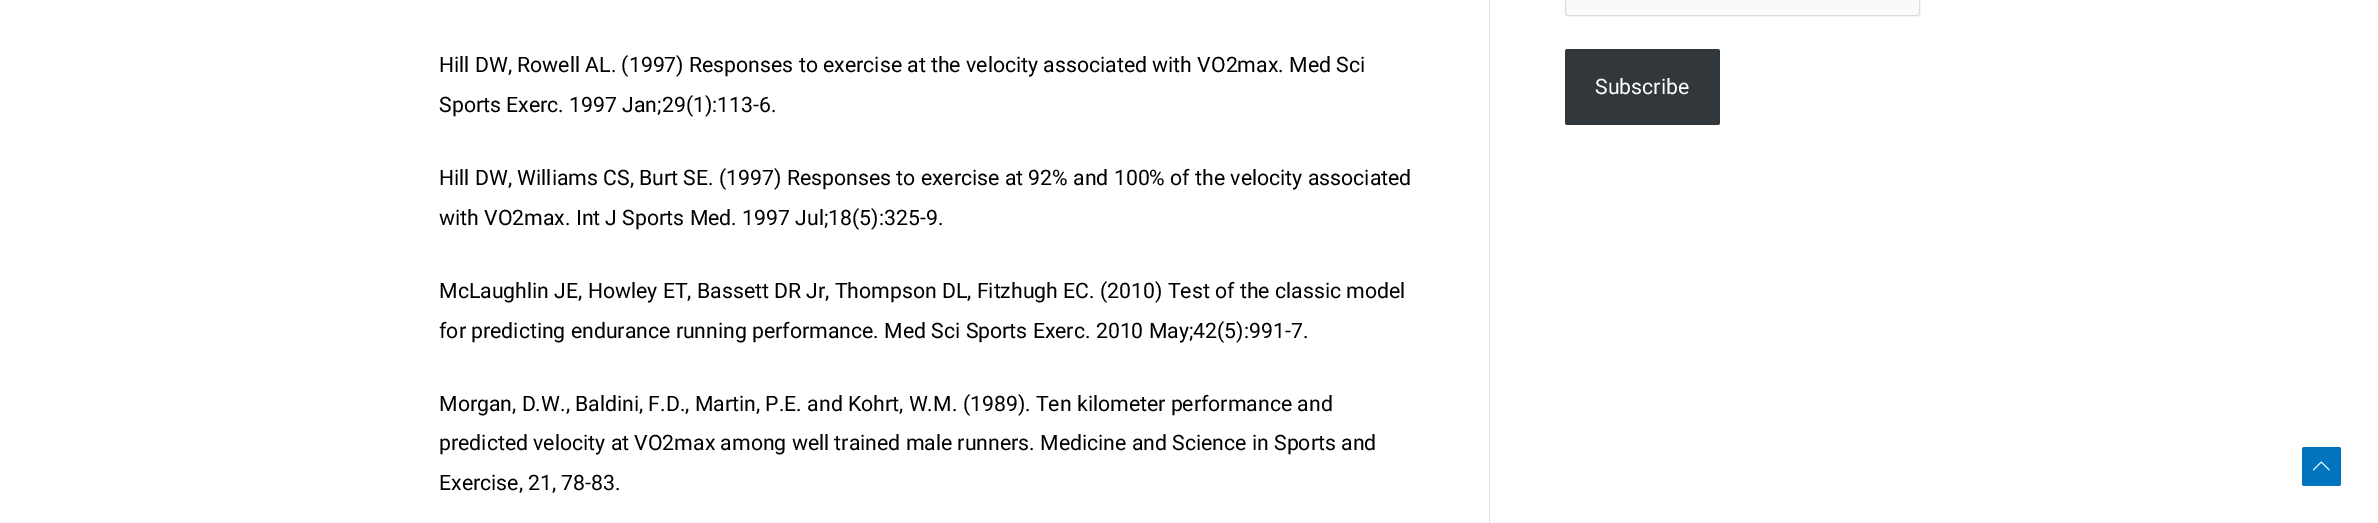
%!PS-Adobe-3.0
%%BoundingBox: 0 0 2378 523
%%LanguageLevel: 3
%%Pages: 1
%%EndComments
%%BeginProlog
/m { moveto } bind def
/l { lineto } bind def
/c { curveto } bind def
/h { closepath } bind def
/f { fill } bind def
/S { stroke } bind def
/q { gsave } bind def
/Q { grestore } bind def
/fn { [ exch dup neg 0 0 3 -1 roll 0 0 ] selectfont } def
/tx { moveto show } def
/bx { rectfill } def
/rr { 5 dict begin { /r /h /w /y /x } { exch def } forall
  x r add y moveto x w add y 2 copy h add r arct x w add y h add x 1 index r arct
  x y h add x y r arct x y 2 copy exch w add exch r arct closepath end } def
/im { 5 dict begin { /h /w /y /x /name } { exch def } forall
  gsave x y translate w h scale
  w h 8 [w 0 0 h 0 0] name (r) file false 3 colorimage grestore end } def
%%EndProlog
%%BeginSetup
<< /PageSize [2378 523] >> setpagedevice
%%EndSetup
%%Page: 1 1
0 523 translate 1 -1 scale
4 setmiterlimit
1 setgray
0 0 2378 523 bx
0.867 setgray
1489 0 1 523 bx
/Roboto-Regular 21.25 fn
0 setgray
(Hill DW, Rowell AL. \(1997\) Responses to exercise at the velocity associated with VO2max. Med Sci) 439 72 tx
(Sports Exerc. 1997 Jan;29\(1\):113-6.) 439 112 tx
(Hill DW, Williams CS, Burt SE. \(1997\) Responses to exercise at 92% and 100% of the velocity associated) 439 185 tx
(with VO2max. Int J Sports Med. 1997 Jul;18\(5\):325-9.) 439 225 tx
(McLaughlin JE, Howley ET, Bassett DR Jr, Thompson DL, Fitzhugh EC. \(2010\) Test of the classic model) 439 298 tx
(for predicting endurance running performance. Med Sci Sports Exerc. 2010 May;42\(5\):991-7.) 439 338 tx
(Morgan, D.W., Baldini, F.D., Martin, P.E. and Kohrt, W.M. \(1989\). Ten kilometer performance and) 439 411 tx
(predicted velocity at VO2max among well trained male runners. Medicine and Science in Sports and) 439 450 tx
(Exercise, 21, 78-83.) 439 490 tx
0.98 setgray
1565.5 -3.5 354 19 2 rr q f Q
0.867 setgray
S
0.196 0.216 0.235 setrgbcolor
1565 49 155 76 2.5 rr f
1 setgray
(Subscribe) 1595 94 tx
0.008 0.455 0.745 setrgbcolor
2339 486 m 2304.5 486 l 2303 486 2302 485 2302 484 c 2302 449.5 l 2302 448 2303 447 2304.5 447 c 2339 447 l 2340 447 2341 448 2341 449.5 c 2341 484 l 2341 485 2340 486 2339 486 c h f
(image0.raw) 2312 461 18 10 im
showpage
%%EOF
